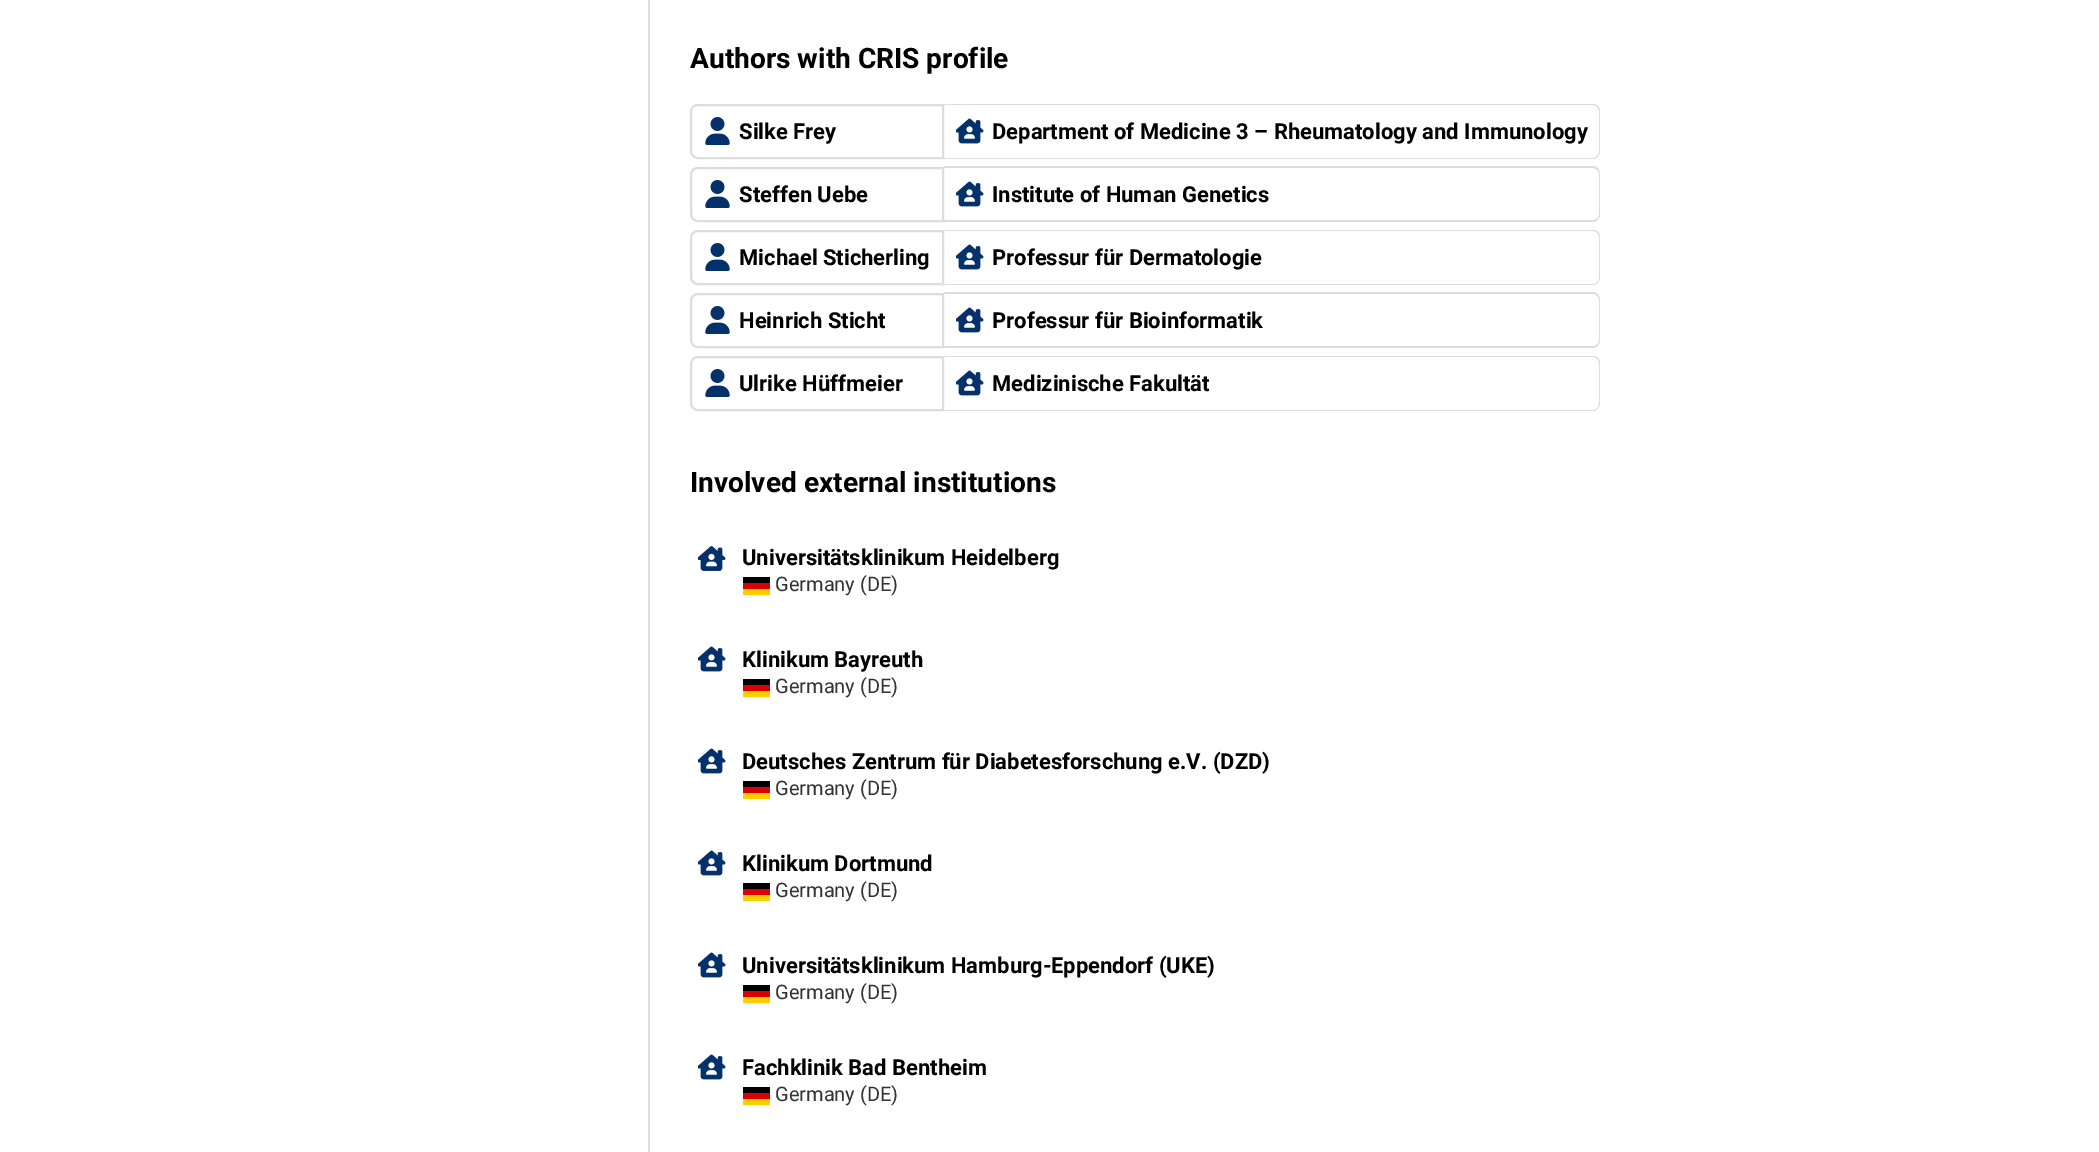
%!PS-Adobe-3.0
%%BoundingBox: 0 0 2099 1152
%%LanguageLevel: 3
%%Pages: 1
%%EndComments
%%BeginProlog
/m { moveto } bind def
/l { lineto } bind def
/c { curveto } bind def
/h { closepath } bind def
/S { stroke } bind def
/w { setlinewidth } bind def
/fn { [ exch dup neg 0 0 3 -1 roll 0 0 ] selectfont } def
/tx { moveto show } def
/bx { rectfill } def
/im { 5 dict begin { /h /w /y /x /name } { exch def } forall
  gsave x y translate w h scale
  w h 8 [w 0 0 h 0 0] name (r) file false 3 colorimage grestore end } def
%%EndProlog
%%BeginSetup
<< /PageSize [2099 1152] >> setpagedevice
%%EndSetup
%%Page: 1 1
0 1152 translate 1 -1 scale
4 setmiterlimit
1 setgray
0 0 2099 1152 bx
0.867 setgray
648 0 2 1152 bx
/Roboto-Bold 28.1 fn
0 setgray
(Authors with CRIS profile) 690 68 tx
0.867 setgray
2 w
698 105 m 943 105 l 943 158 l 698 158 l 694 158 691 155 691 151 c 691 112 l 691 108 694 105 698 105 c h S
(image0.raw) 705 117 25 28 im
/Roboto-Bold 22 fn
0 setgray
(Silke Frey) 739 139 tx
0.867 setgray
944 104 m 1593 104 l 1597 104 1600 107 1600 111 c 1600 151 l 1600 155 1597 159 1593 159 c 944 159 l h 944 105 m 1593 105 l 1596 105 1599 108 1599 111 c 1599 151 l 1599 155 1596 158 1593 158 c 944 158 l h eofill
(image1.raw) 956 118 28 26 im
0 setgray
(Department of Medicine 3 – Rheumatology and Immunology) 992 139 tx
0.867 setgray
698 168 m 943 168 l 943 221 l 698 221 l 694 221 691 218 691 214 c 691 175 l 691 171 694 168 698 168 c h S
(image0.raw) 705 180 25 28 im
0 setgray
(Steffen Uebe) 739 202 tx
0.867 setgray
944 166 m 1593 166 l 1597 166 1600 170 1600 174 c 1600 214 l 1600 218 1597 222 1593 222 c 944 222 l h 944 168 m 1593 168 l 1596 168 1599 171 1599 174 c 1599 214 l 1599 218 1596 220 1593 220 c 944 220 l h eofill
(image1.raw) 956 181 28 26 im
0 setgray
(Institute of Human Genetics) 992 202 tx
0.867 setgray
698 231 m 943 231 l 943 284 l 698 284 l 694 284 691 281 691 277 c 691 238 l 691 234 694 231 698 231 c h S
(image0.raw) 705 243 25 28 im
0 setgray
(Michael Sticherling) 739 265 tx
0.867 setgray
944 230 m 1593 230 l 1597 230 1600 233 1600 237 c 1600 277 l 1600 281 1597 285 1593 285 c 944 285 l h 944 231 m 1593 231 l 1596 231 1599 234 1599 237 c 1599 277 l 1599 281 1596 284 1593 284 c 944 284 l h eofill
(image1.raw) 956 244 28 26 im
0 setgray
(Professur für Dermatologie) 992 265 tx
0.867 setgray
698 294 m 943 294 l 943 347 l 698 347 l 694 347 691 344 691 340 c 691 301 l 691 297 694 294 698 294 c h S
(image0.raw) 705 306 25 28 im
0 setgray
(Heinrich Sticht) 739 328 tx
0.867 setgray
944 292 m 1593 292 l 1597 292 1600 296 1600 300 c 1600 340 l 1600 344 1597 348 1593 348 c 944 348 l h 944 294 m 1593 294 l 1596 294 1599 297 1599 300 c 1599 340 l 1599 344 1596 346 1593 346 c 944 346 l h eofill
(image1.raw) 956 307 28 26 im
0 setgray
(Professur für Bioinformatik) 992 328 tx
0.867 setgray
698 357 m 943 357 l 943 410 l 698 410 l 694 410 691 407 691 403 c 691 364 l 691 360 694 357 698 357 c h S
(image0.raw) 705 369 25 28 im
0 setgray
(Ulrike Hüffmeier) 739 391 tx
0.867 setgray
944 356 m 1593 356 l 1597 356 1600 359 1600 363 c 1600 403 l 1600 407 1597 411 1593 411 c 944 411 l h 944 357 m 1593 357 l 1596 357 1599 360 1599 363 c 1599 403 l 1599 407 1596 410 1593 410 c 944 410 l h eofill
(image1.raw) 956 370 28 26 im
0 setgray
(Medizinische Fakultät) 992 391 tx
/Roboto-Bold 28.1 fn
(Involved external institutions) 690 492 tx
(image2.raw) 698 546 28 25 im
/Roboto-Bold 22 fn
(Universitätsklinikum Heidelberg) 742 565 tx
743 577 27 6 bx
/Roboto-Regular 20 fn
0.2 setgray
(Germany \(DE\)) 775 591 tx
0.867 0 0 setrgbcolor
743 583 27 6 bx
1 0.808 0 setrgbcolor
743 589 27 6 bx
(image1.raw) 698 646 28 26 im
/Roboto-Bold 22 fn
0 setgray
(Klinikum Bayreuth) 742 667 tx
743 679 27 6 bx
/Roboto-Regular 20 fn
0.2 setgray
(Germany \(DE\)) 775 693 tx
0.867 0 0 setrgbcolor
743 685 27 6 bx
1 0.808 0 setrgbcolor
743 691 27 6 bx
(image1.raw) 698 748 28 26 im
/Roboto-Bold 22 fn
0 setgray
(Deutsches Zentrum für Diabetesforschung e.V. \(DZD\)) 742 769 tx
743 781 27 6 bx
/Roboto-Regular 20 fn
0.2 setgray
(Germany \(DE\)) 775 795 tx
0.867 0 0 setrgbcolor
743 787 27 6 bx
1 0.808 0 setrgbcolor
743 793 27 6 bx
(image1.raw) 698 850 28 26 im
/Roboto-Bold 22 fn
0 setgray
(Klinikum Dortmund) 742 871 tx
743 883 27 6 bx
/Roboto-Regular 20 fn
0.2 setgray
(Germany \(DE\)) 775 897 tx
0.867 0 0 setrgbcolor
743 889 27 6 bx
1 0.808 0 setrgbcolor
743 895 27 6 bx
(image1.raw) 698 952 28 26 im
/Roboto-Bold 22 fn
0 setgray
(Universitätsklinikum Hamburg-Eppendorf \(UKE\)) 742 973 tx
743 985 27 6 bx
/Roboto-Regular 20 fn
0.2 setgray
(Germany \(DE\)) 775 999 tx
0.867 0 0 setrgbcolor
743 991 27 6 bx
1 0.808 0 setrgbcolor
743 997 27 6 bx
(image1.raw) 698 1054 28 26 im
/Roboto-Bold 22 fn
0 setgray
(Fachklinik Bad Bentheim) 742 1075 tx
743 1087 27 6 bx
/Roboto-Regular 20 fn
0.2 setgray
(Germany \(DE\)) 775 1101 tx
0.867 0 0 setrgbcolor
743 1093 27 6 bx
1 0.808 0 setrgbcolor
743 1099 27 6 bx
showpage
%%EOF
